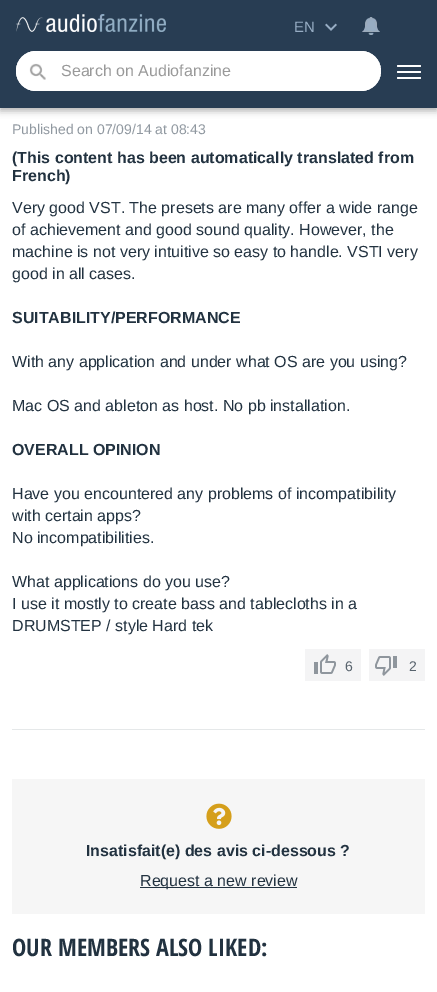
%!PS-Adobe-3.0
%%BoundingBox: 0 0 437 992
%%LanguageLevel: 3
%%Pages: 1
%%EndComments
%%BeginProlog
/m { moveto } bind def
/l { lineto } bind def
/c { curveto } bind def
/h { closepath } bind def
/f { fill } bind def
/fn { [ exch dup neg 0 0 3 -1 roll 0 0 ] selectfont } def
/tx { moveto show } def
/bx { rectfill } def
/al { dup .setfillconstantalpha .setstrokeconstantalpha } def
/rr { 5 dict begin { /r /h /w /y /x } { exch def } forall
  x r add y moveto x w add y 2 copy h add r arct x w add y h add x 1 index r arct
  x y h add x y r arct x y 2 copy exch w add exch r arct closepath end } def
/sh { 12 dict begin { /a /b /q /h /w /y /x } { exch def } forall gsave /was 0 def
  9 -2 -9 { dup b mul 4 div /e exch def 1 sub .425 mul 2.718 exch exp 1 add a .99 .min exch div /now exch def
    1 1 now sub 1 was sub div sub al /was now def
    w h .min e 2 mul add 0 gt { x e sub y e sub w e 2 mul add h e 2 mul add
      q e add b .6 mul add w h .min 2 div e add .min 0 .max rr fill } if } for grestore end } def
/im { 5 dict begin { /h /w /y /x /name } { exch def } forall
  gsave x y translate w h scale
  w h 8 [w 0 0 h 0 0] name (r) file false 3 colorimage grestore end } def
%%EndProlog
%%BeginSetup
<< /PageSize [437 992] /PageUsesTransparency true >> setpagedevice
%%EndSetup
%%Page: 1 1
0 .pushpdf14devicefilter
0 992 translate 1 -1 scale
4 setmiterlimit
1 setgray
0 0 437 992 bx
0 setgray
0 3 437 108 0 3.5 0.3 sh
0.157 0.239 0.325 setrgbcolor
0 0 437 108 bx
(image0.raw) 16 14 150 18 im
(image1.raw) 362 17 18 18 im
(image2.raw) 325 23 12 8 im
/LiberationSans-Regular 15 fn
0.592 0.678 0.769 setrgbcolor
(EN) 294 32 tx
1 setgray
16 51 365 40 20 rr f
36 51 m 361 51 l 372 51 381 60 381 71 c 381 82 372 91 361 91 c 36 91 l 25 91 16 82 16 71 c 16 60 25 51 36 51 c h 36 52 m 361 52 l 372 52 381 61 381 71 c 381 81 372 90 361 90 c 36 90 l 26 90 17 81 17 71 c 17 61 26 52 36 52 c h eofill
(image3.raw) 29 63 17 17 im
/LiberationSans-Regular 16 fn
0.6 setgray
(Search on Audiofanzine) 61 76 tx
1 setgray
397 77 24 2 1 rr f
397 65 24 2 1 rr f
397 71 24 2 1 rr f
0.898 0.91 0.914 setrgbcolor
12 729 413 1 bx
/LiberationSans-Regular 14 fn
0.565 0.596 0.627 setrgbcolor
(Published on 07/09/14 at 08:43) 12 134 tx
/LiberationSans-Bold 16 fn
0.133 0.196 0.251 setrgbcolor
(\(This content has been automatically translated from) 12 163 tx
(French\)) 12 181 tx
/LiberationSans-Regular 16 fn
(Very good VST. The presets are many offer a wide range) 12 213 tx
(of achievement and good sound quality. However, the) 12 235 tx
(machine is not very intuitive so easy to handle. VSTI very) 12 257 tx
(good in all cases.) 12 279 tx
/LiberationSans-Bold 16 fn
(SUITABILITY/PERFORMANCE) 12 323 tx
/LiberationSans-Regular 16 fn
(With any application and under what OS are you using?) 12 367 tx
(Mac OS and ableton as host. No pb installation.) 12 411 tx
/LiberationSans-Bold 16 fn
(OVERALL OPINION) 12 455 tx
/LiberationSans-Regular 16 fn
(Have you encountered any problems of incompatibility) 12 499 tx
(with certain apps?) 12 521 tx
(No incompatibilities.) 12 543 tx
(What applications do you use?) 12 587 tx
(I use it mostly to create bass and tablecloths in a) 12 609 tx
(DRUMSTEP / style Hard tek) 12 631 tx
0.957 0.957 0.961 setrgbcolor
305 649 56 32 bx
(image4.raw) 314 654 22 20 im
/LiberationSans-Regular 14 fn
0.345 0.388 0.427 setrgbcolor
(6) 345 671 tx
0.957 0.957 0.961 setrgbcolor
369 649 56 32 bx
(image5.raw) 375 656 22 20 im
0.345 0.388 0.427 setrgbcolor
(2) 409 671 tx
0.965 setgray
12 779 413 135 bx
(image6.raw) 206 803 26 26 im
/LiberationSans-Bold 16 fn
0.133 0.196 0.251 setrgbcolor
(Insatisfait\(e\) des avis ci-dessous ?) 86 856 tx
140 887 157 1 bx
/LiberationSans-Regular 16 fn
(Request a new review) 140 886 tx
/OpenSansCondensed-Bold 24 fn
(OUR MEMBERS ALSO LIKED:) 12 956 tx
.poppdf14devicefilter showpage
%%EOF
